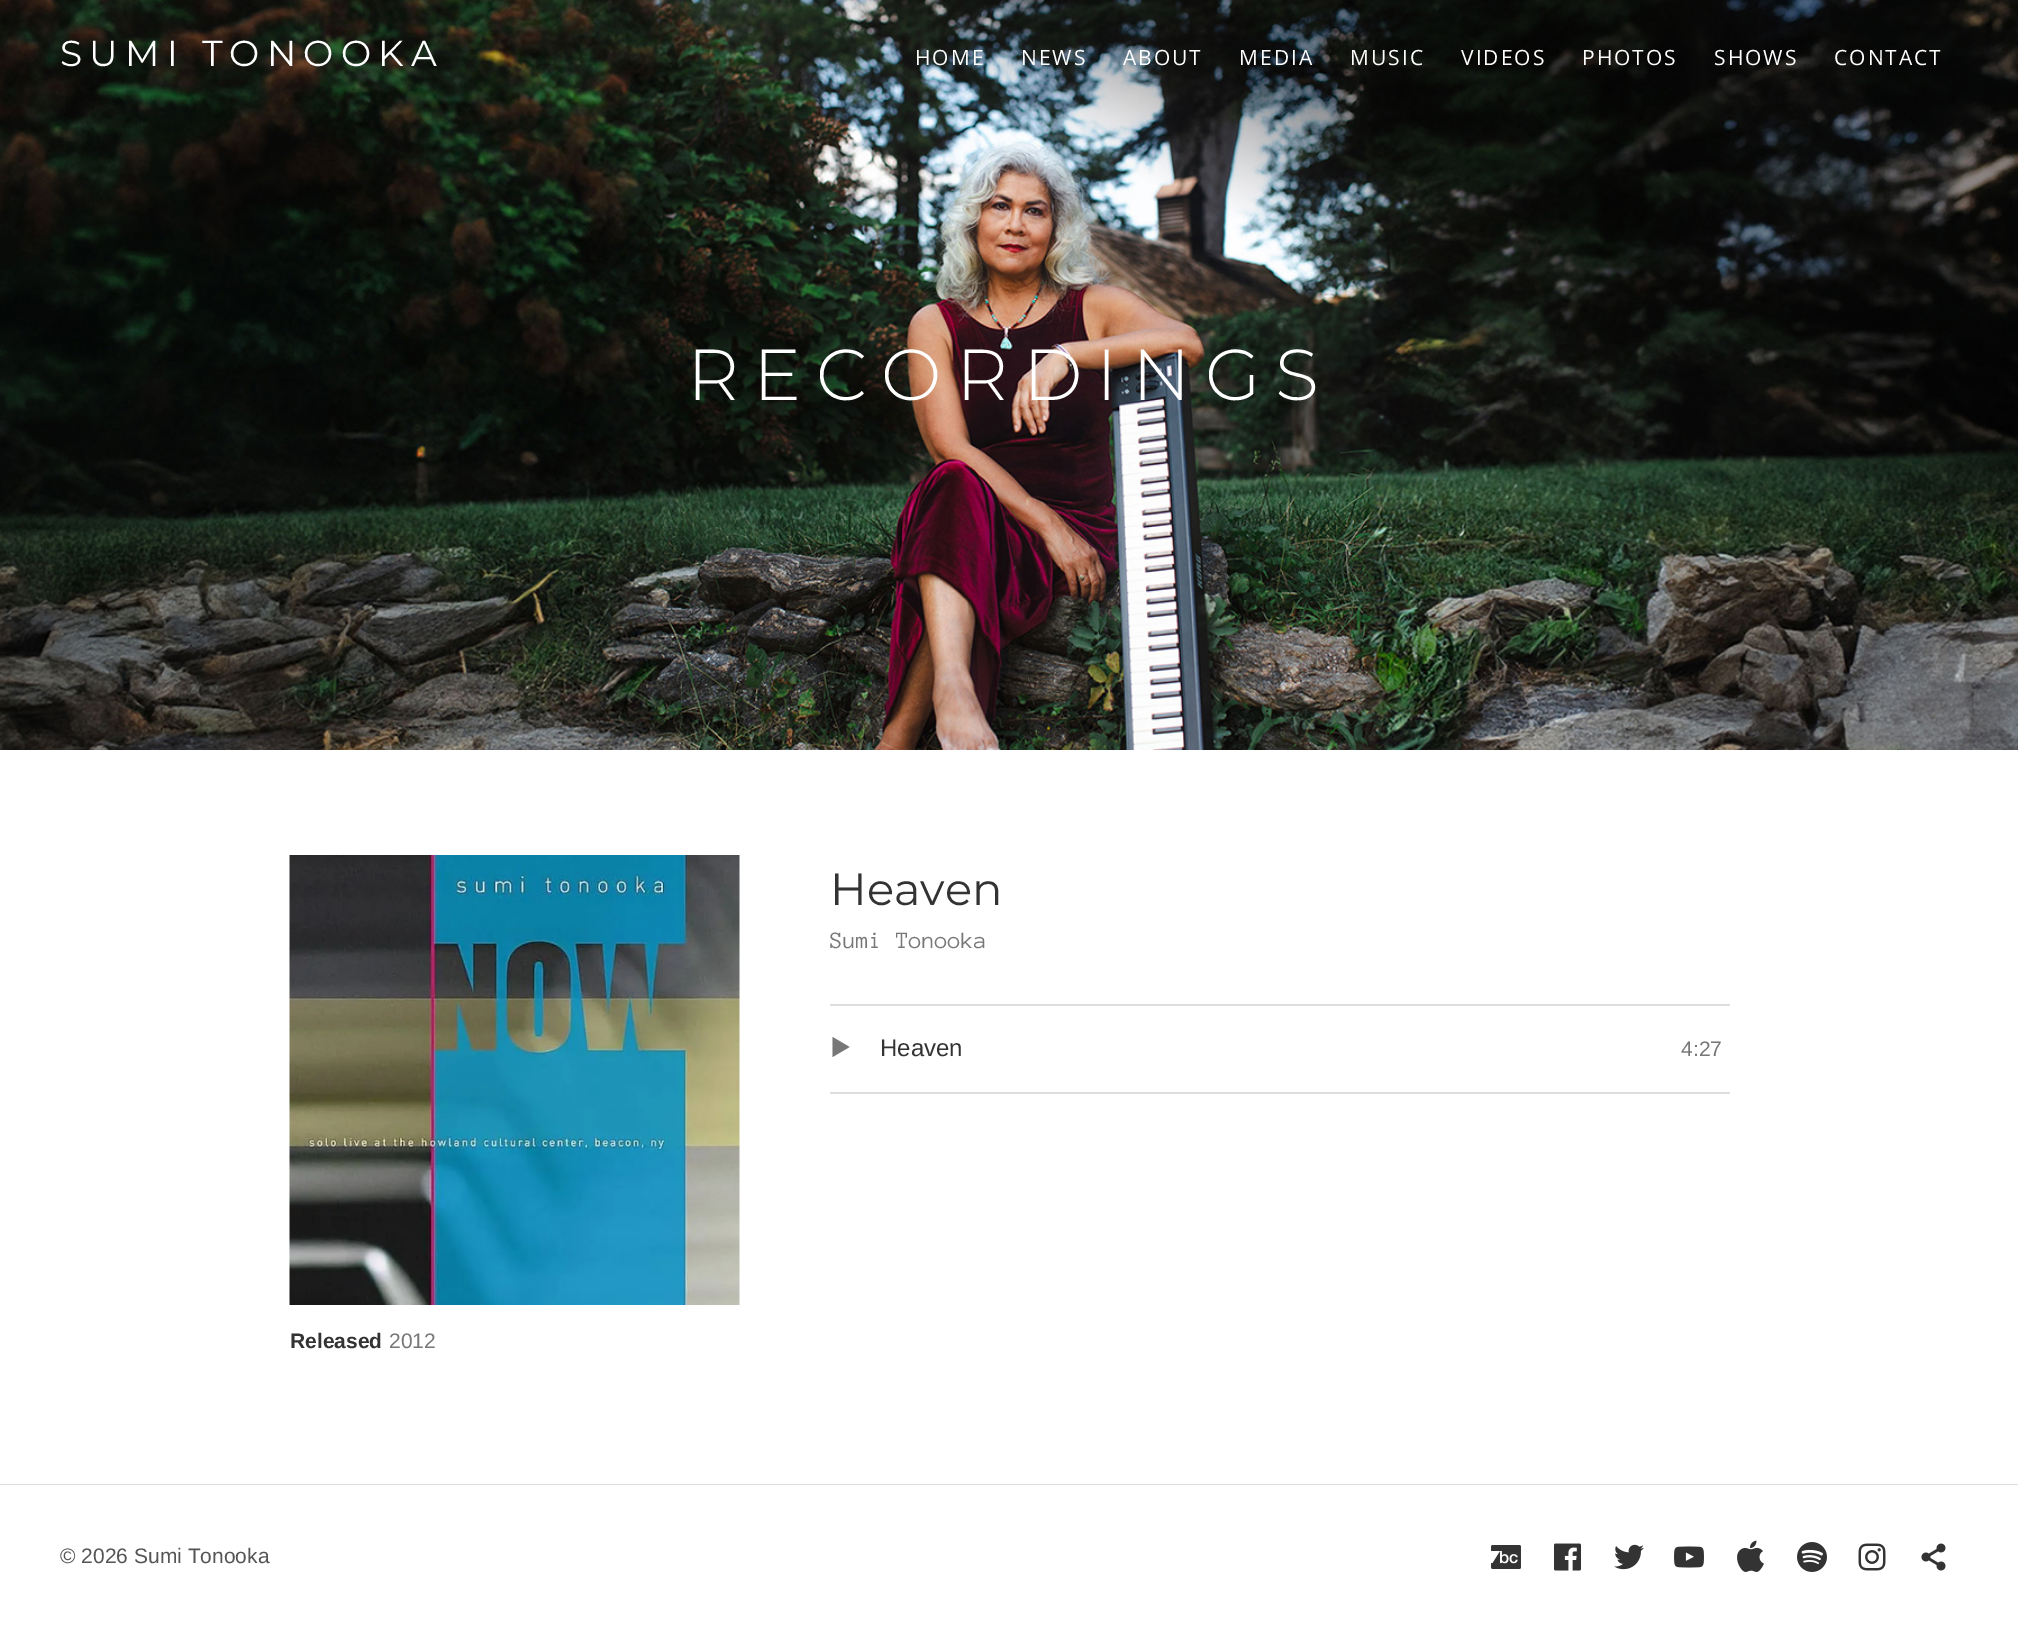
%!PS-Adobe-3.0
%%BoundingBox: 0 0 2018 1628
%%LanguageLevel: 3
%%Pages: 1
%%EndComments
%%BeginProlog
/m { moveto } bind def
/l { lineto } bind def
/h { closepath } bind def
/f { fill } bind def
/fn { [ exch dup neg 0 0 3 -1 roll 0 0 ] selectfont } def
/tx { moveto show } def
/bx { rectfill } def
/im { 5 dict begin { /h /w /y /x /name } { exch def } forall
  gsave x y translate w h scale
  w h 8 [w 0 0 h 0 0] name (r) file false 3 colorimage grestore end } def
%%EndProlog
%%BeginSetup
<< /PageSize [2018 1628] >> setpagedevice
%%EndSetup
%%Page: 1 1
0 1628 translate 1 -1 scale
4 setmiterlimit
1 setgray
0 0 2018 1628 bx
(image0.raw) 0 0 2018 750 im
/Montserrat-Regular 36 fn
60 66 m 7.25 0 (SUMI TONOOKA) ashow
/OpenSans-Regular 21 fn
915 65 m 2 0 (HOME) ashow
1021 65 m 2 0 (NEWS) ashow
1123 65 m 2 0 (ABOUT) ashow
1239 65 m 2 0 (MEDIA) ashow
1350 65 m 2 0 (MUSIC) ashow
1461 65 m 2 0 (VIDEOS) ashow
1582 65 m 2 0 (PHOTOS) ashow
1714 65 m 2 0 (SHOWS) ashow
1834 65 m 2 0 (CONTACT) ashow
/Montserrat-Light 72 fn
687 400 m 14.5 0 (RECORDINGS) ashow
0.867 setgray
0 1484 2018 1 bx
/Montserrat-Regular 45 fn
0.2 setgray
(Heaven) 830 905 tx
/AnonymousPro-Regular 24 fn
0.467 setgray
(Sumi Tonooka) 830 948 tx
0.867 setgray
830 1004 900 2 bx
830 1092 900 2 bx
0.467 setgray
832.5 1037 m 832.5 1057 l 849.5 1047 l h f
/Arimo-Regular 24 fn
0.2 setgray
(Heaven) 880 1056 tx
/Arimo-Regular 21 fn
0.467 setgray
(4:27) 1681 1056 tx
(image1.raw) 289 855 451 450 im
/Arimo-Bold 21 fn
0.2 setgray
(Released) 290 1348 tx
/Arimo-Regular 21 fn
0.467 setgray
(2012) 389 1348 tx
0.333 setgray
(© 2026 Sumi Tonooka) 60 1563 tx
(image2.raw) 1491 1545 30 24 im
(image3.raw) 1554 1543 27 28 im
(image4.raw) 1614 1544 30 26 im
(image5.raw) 1674 1546 30 22 im
(image6.raw) 1737 1540 27 32 im
(image7.raw) 1797 1542 30 30 im
(image8.raw) 1858 1543 28 28 im
(image9.raw) 1921 1543 25 28 im
showpage
%%EOF
